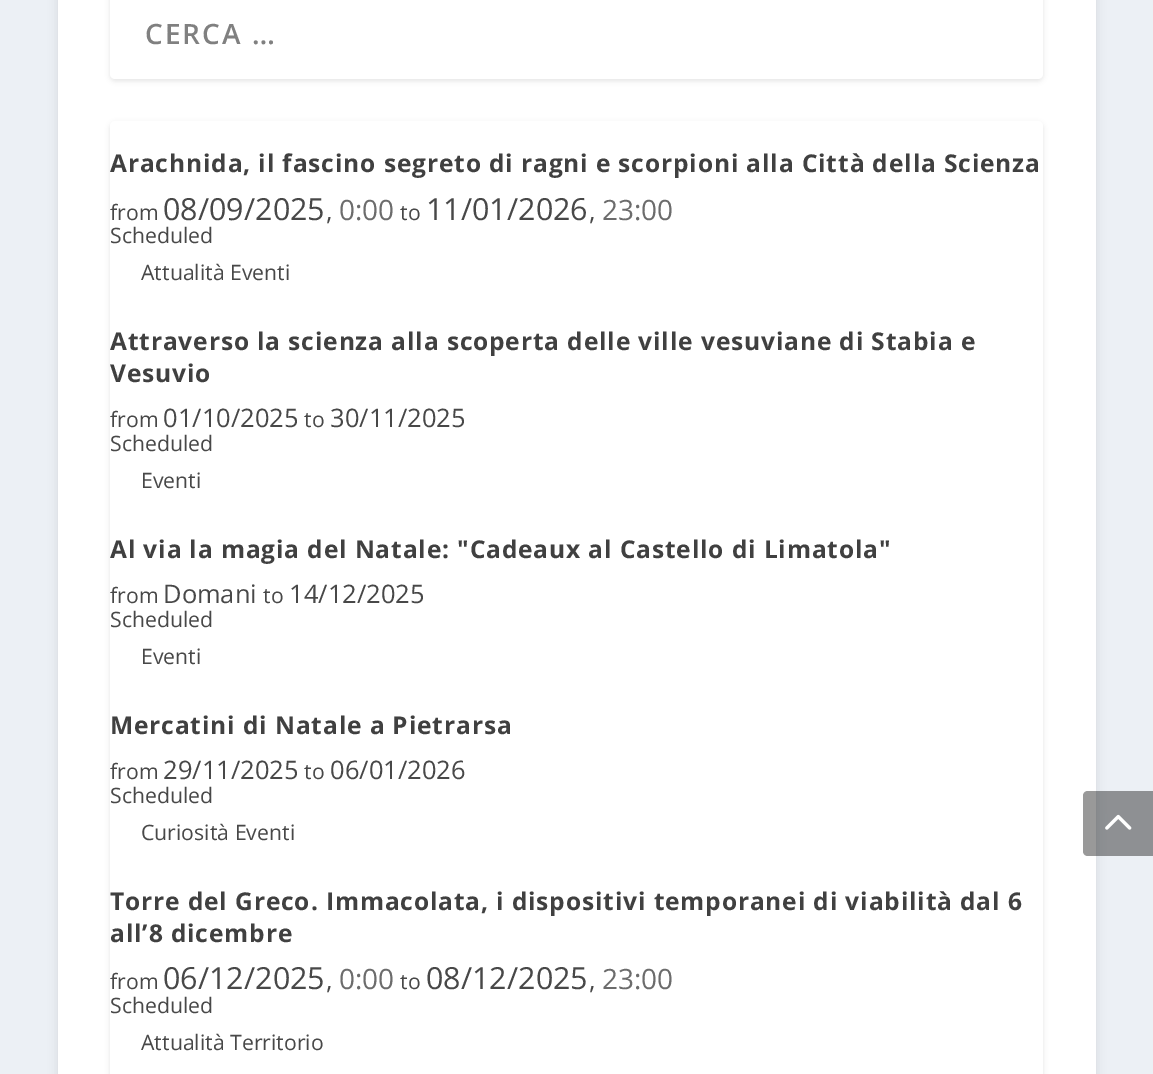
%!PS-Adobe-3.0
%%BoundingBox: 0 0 1153 1074
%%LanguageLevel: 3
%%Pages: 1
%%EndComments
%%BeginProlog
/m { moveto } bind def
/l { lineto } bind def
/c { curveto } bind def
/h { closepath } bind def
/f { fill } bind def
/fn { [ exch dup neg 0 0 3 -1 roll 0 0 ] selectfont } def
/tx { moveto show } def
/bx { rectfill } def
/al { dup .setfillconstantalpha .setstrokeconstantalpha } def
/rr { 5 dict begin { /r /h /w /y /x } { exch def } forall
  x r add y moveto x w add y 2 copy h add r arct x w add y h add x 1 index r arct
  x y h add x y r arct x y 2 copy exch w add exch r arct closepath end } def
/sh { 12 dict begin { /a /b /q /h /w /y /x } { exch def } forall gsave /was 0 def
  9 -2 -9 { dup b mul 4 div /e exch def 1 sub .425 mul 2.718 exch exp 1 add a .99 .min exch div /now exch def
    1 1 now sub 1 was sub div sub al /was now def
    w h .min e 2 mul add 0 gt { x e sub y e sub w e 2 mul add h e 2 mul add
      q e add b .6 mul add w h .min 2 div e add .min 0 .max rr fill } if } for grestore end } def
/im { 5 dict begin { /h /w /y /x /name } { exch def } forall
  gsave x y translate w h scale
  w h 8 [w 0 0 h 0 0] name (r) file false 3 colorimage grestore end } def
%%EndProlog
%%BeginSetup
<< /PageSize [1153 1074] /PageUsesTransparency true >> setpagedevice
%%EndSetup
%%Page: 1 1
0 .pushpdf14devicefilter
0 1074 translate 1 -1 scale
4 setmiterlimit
0.925 0.941 0.961 setrgbcolor
0 0 1153 1074 bx
0 setgray
58 -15 1038 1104 0 5 0.1 sh
1 setgray
58 0 1038 1074 bx
0 setgray
110 -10 933 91 5 2.5 0.1 sh
1 setgray
110 -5 933 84 5 rr f
/OpenSans-SemiBold 28 fn
0.502 setgray
145 44 m 2 0 (CERCA …) ashow
0 setgray
110 123 933 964 5 2.5 0.1 sh
1 setgray
110 121 933 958 5 rr f
/OpenSans-Bold 24.5 fn
0.251 setgray
110 172 m 0.88 0 (Arachnida, il fascino segreto di ragni e scorpioni alla Città della Scienza) ashow
/OpenSans-Regular 21.25 fn
0.282 setgray
(from) 110 220 tx
/OpenSans-Regular 30.5 fn
(08/09/2025) 163 220 tx
/OpenSans-Regular 25.5 fn
(,) 326 220 tx
/OpenSans-Regular 28 fn
0.424 setgray
(0:00) 339 220 tx
/OpenSans-Regular 21.25 fn
0.282 setgray
(to) 400 220 tx
/OpenSans-Regular 30.5 fn
(11/01/2026) 426 220 tx
/OpenSans-Regular 25.5 fn
(,) 589 220 tx
/OpenSans-Regular 28 fn
0.424 setgray
(23:00) 602 220 tx
/OpenSans-Regular 21.25 fn
0.282 setgray
(Scheduled) 110 243 tx
(Attualità Eventi) 141 280 tx
/OpenSans-Bold 24.5 fn
0.251 setgray
110 350 m 0.88 0 (Attraverso la scienza alla scoperta delle ville vesuviane di Stabia e) ashow
110 382 m 0.88 0 (Vesuvio) ashow
/OpenSans-Regular 21.25 fn
0.282 setgray
(from) 110 427 tx
/OpenSans-Regular 25.5 fn
(01/10/2025) 163 427 tx
/OpenSans-Regular 21.25 fn
(to) 304 427 tx
/OpenSans-Regular 25.5 fn
(30/11/2025) 330 427 tx
/OpenSans-Regular 21.25 fn
(Scheduled) 110 451 tx
(Eventi) 141 488 tx
/OpenSans-Bold 24.5 fn
0.251 setgray
110 558 m 0.88 0 (Al via la magia del Natale: "Cadeaux al Castello di Limatola") ashow
/OpenSans-Regular 21.25 fn
0.282 setgray
(from) 110 603 tx
/OpenSans-Regular 25.5 fn
(Domani) 163 603 tx
/OpenSans-Regular 21.25 fn
(to) 263 603 tx
/OpenSans-Regular 25.5 fn
(14/12/2025) 289 603 tx
/OpenSans-Regular 21.25 fn
(Scheduled) 110 627 tx
(Eventi) 141 664 tx
/OpenSans-Bold 24.5 fn
0.251 setgray
110 734 m 0.88 0 (Mercatini di Natale a Pietrarsa) ashow
/OpenSans-Regular 21.25 fn
0.282 setgray
(from) 110 779 tx
/OpenSans-Regular 25.5 fn
(29/11/2025) 163 779 tx
/OpenSans-Regular 21.25 fn
(to) 304 779 tx
/OpenSans-Regular 25.5 fn
(06/01/2026) 330 779 tx
/OpenSans-Regular 21.25 fn
(Scheduled) 110 803 tx
(Curiosità Eventi) 141 840 tx
/OpenSans-Bold 24.5 fn
0.251 setgray
110 910 m 0.88 0 (Torre del Greco. Immacolata, i dispositivi temporanei di viabilità dal 6) ashow
110 942 m 0.88 0 (all’8 dicembre) ashow
/OpenSans-Regular 21.25 fn
0.282 setgray
(from) 110 989 tx
/OpenSans-Regular 30.5 fn
(06/12/2025) 163 989 tx
/OpenSans-Regular 25.5 fn
(,) 326 989 tx
/OpenSans-Regular 28 fn
0.424 setgray
(0:00) 339 989 tx
/OpenSans-Regular 21.25 fn
0.282 setgray
(to) 400 989 tx
/OpenSans-Regular 30.5 fn
(08/12/2025) 426 989 tx
/OpenSans-Regular 25.5 fn
(,) 589 989 tx
/OpenSans-Regular 28 fn
0.424 setgray
(23:00) 602 989 tx
/OpenSans-Regular 21.25 fn
0.282 setgray
(Scheduled) 110 1013 tx
(Attualità Territorio) 141 1050 tx
0.4 al
0 setgray
1088 791 m 1153 791 l 1153 856 l 1088 856 l 1085 856 1083 854 1083 851 c 1083 796 l 1083 793 1085 791 1088 791 c h f
1 al
(image0.raw) 1105 814 27 16 im
.poppdf14devicefilter showpage
%%EOF
